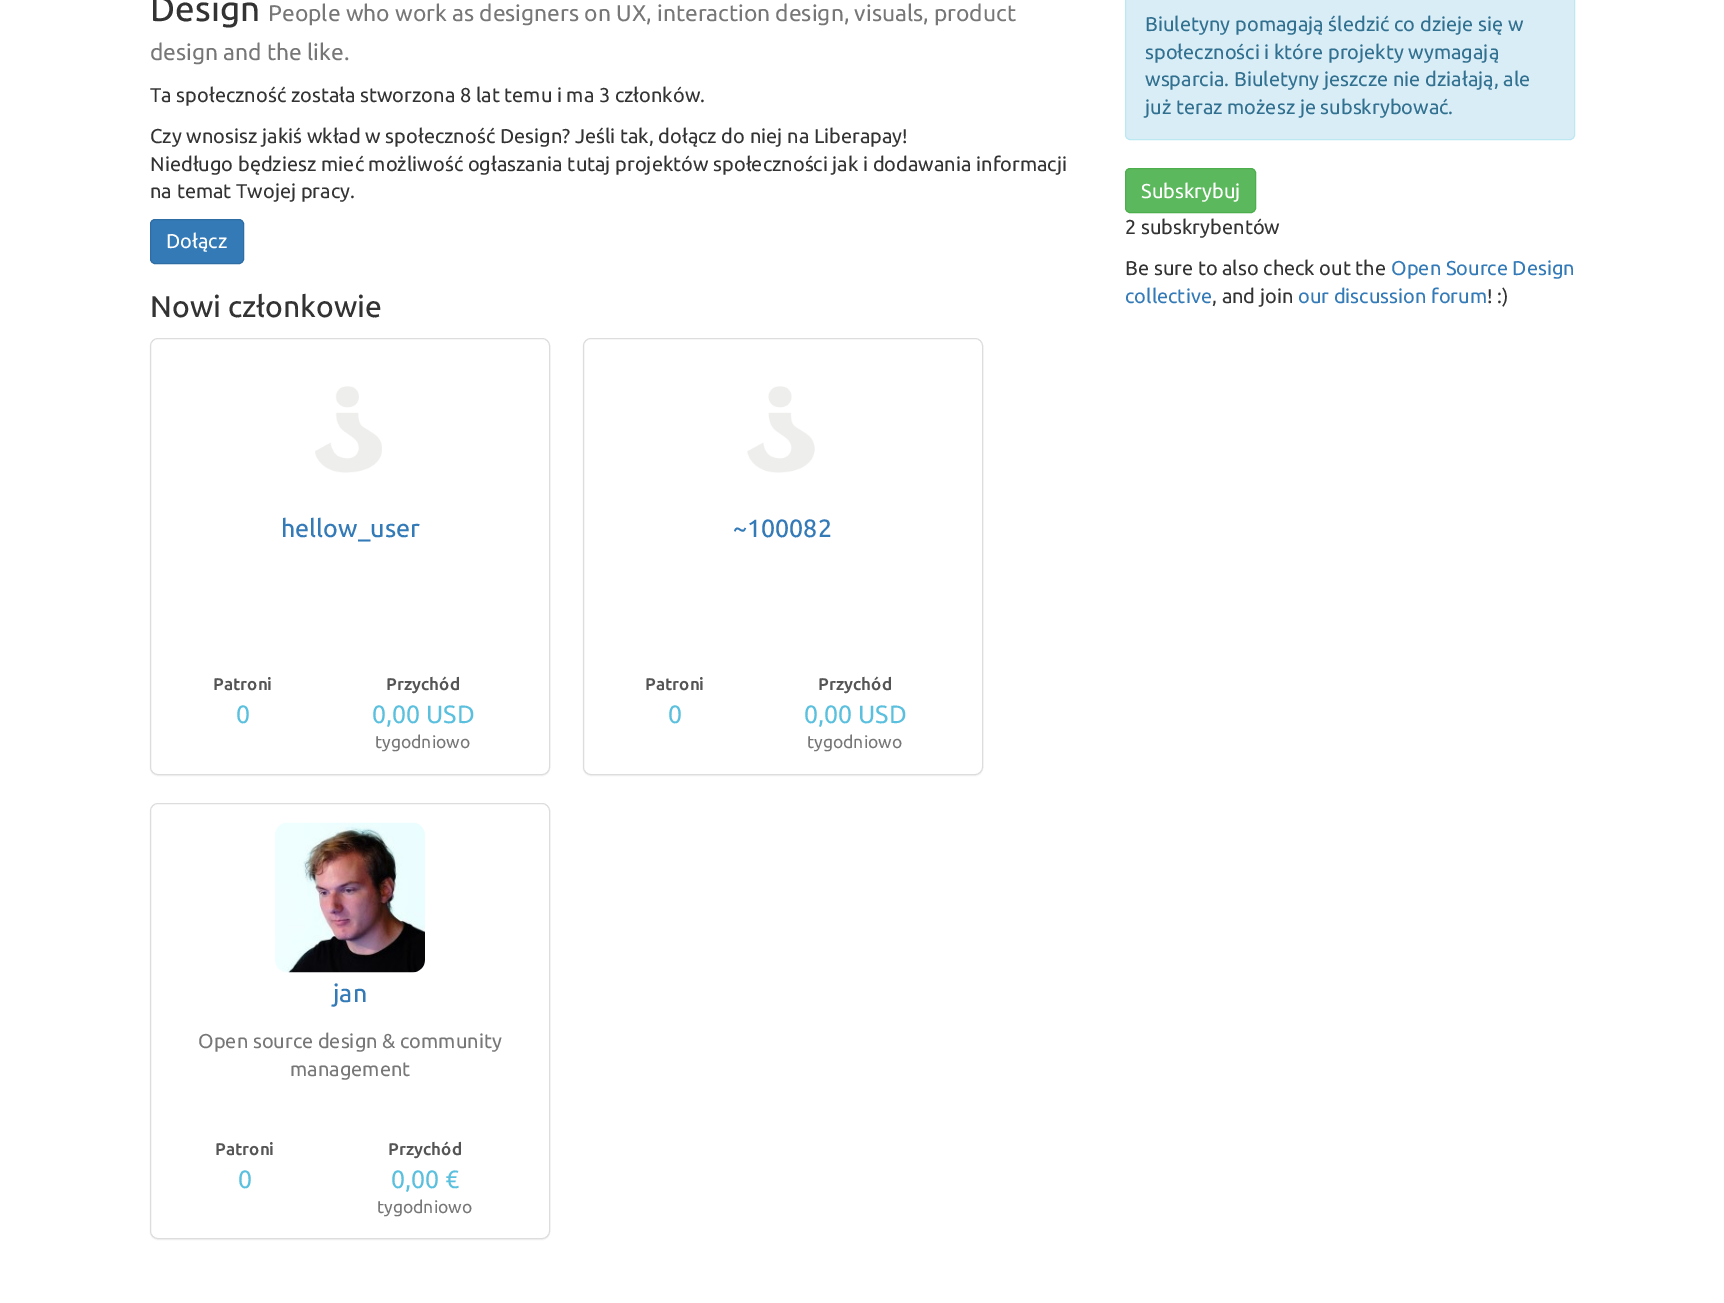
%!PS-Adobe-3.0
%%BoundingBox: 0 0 1724 1303
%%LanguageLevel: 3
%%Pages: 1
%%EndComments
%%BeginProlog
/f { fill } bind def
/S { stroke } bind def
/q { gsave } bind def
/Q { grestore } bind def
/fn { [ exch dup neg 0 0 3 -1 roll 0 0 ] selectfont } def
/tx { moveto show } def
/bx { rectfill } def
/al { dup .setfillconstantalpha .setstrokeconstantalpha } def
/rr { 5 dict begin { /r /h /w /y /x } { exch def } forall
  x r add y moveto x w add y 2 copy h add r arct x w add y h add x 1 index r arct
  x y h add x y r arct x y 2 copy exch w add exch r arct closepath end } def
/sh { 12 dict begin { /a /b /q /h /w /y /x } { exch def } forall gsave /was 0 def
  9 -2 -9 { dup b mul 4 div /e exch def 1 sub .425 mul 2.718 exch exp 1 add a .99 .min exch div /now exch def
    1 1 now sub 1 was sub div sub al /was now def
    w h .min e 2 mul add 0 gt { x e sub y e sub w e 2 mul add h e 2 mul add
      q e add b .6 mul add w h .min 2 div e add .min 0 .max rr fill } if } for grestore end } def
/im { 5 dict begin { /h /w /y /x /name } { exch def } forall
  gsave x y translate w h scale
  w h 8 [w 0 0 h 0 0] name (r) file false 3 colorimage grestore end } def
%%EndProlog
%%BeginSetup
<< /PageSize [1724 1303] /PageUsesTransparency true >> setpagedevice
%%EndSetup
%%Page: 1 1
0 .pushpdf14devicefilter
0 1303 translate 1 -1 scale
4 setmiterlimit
1 setgray
0 0 1724 1303 bx
/Ubuntu-Medium 35 fn
0.2 setgray
(Design) 150 21 tx
/Ubuntu-Regular 22.75 fn
0.467 setgray
(People who work as designers on UX, interaction design, visuals, product) 268 21 tx
(design and the like.) 150 60 tx
/Ubuntu-Regular 20 fn
0.2 setgray
(Ta społeczność została stworzona 8 lat temu i ma 3 członków.) 150 102 tx
(Czy wnosisz jakiś wkład w społeczność Design? Jeśli tak, dołącz do niej na Liberapay!) 150 143 tx
(Niedługo będziesz mieć możliwość ogłaszania tutaj projektów społeczności jak i dodawania informacji) 150 171 tx
(na temat Twojej pracy.) 150 198 tx
0.2 0.478 0.718 setrgbcolor
150.5 219.5 93 44 4.5 rr q f Q
0.18 0.427 0.643 setrgbcolor
S
1 setgray
(Dołącz) 166 248 tx
/Ubuntu-Medium 30 fn
0.2 setgray
(Nowi członkowie) 150 317 tx
0 setgray
150 339 400 437 8 0.5 0.05 sh
1 setgray
150.5 338.5 399 436 7.5 rr q f Q
0.867 setgray
S
(image0.raw) 315 386 67 87 im
/Ubuntu-Medium 25 fn
0.2 0.478 0.718 setrgbcolor
(hellow_user) 281 537 tx
/Ubuntu-Bold 17 fn
0.333 setgray
(Patroni) 213 690 tx
/Ubuntu-Regular 25 fn
0.357 0.753 0.871 setrgbcolor
(0) 236 723 tx
/Ubuntu-Bold 17 fn
0.333 setgray
(Przychód) 386 690 tx
/Ubuntu-Regular 25 fn
0.357 0.753 0.871 setrgbcolor
(0,00 USD) 372 723 tx
/Ubuntu-Regular 17.5 fn
0.467 setgray
(tygodniowo) 375 748 tx
0 setgray
583 339 400 437 8 0.5 0.05 sh
1 setgray
583.5 338.5 399 436 7.5 rr q f Q
0.867 setgray
S
(image1.raw) 747 386 68 87 im
/Ubuntu-Medium 25 fn
0.2 0.478 0.718 setrgbcolor
(~100082) 733 537 tx
/Ubuntu-Bold 17 fn
0.333 setgray
(Patroni) 645 690 tx
/Ubuntu-Regular 25 fn
0.357 0.753 0.871 setrgbcolor
(0) 668 723 tx
/Ubuntu-Bold 17 fn
0.333 setgray
(Przychód) 818 690 tx
/Ubuntu-Regular 25 fn
0.357 0.753 0.871 setrgbcolor
(0,00 USD) 804 723 tx
/Ubuntu-Regular 17.5 fn
0.467 setgray
(tygodniowo) 807 748 tx
0 setgray
150 804 400 436 8 0.5 0.05 sh
1 setgray
150.5 803.5 399 435 7.5 rr q f Q
0.867 setgray
S
(image2.raw) 275 822 150 151 im
/Ubuntu-Medium 25 fn
0.2 0.478 0.718 setrgbcolor
(jan) 333 1002 tx
/Ubuntu-Regular 20 fn
0.467 setgray
(Open source design & community) 198 1048 tx
(management) 290 1076 tx
/Ubuntu-Bold 17 fn
0.333 setgray
(Patroni) 215 1155 tx
/Ubuntu-Regular 25 fn
0.357 0.753 0.871 setrgbcolor
(0) 238 1188 tx
/Ubuntu-Bold 17 fn
0.333 setgray
(Przychód) 388 1155 tx
/Ubuntu-Regular 25 fn
0.357 0.753 0.871 setrgbcolor
(0,00 €) 391 1188 tx
/Ubuntu-Regular 17.5 fn
0.467 setgray
(tygodniowo) 377 1213 tx
0.851 0.929 0.969 setrgbcolor
1125.5 -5.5 449 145 4.5 rr q f Q
0.737 0.91 0.945 setrgbcolor
S
/Ubuntu-Regular 20 fn
0.192 0.439 0.561 setrgbcolor
(Biuletyny pomagają śledzić co dzieje się w) 1145 31 tx
(społeczności i które projekty wymagają) 1145 59 tx
(wsparcia. Biuletyny jeszcze nie działają, ale) 1145 86 tx
(już teraz możesz je subskrybować.) 1145 114 tx
0.361 0.722 0.361 setrgbcolor
1125.5 168.5 130 44 4.5 rr q f Q
0.298 0.682 0.298 setrgbcolor
S
1 setgray
(Subskrybuj) 1141 198 tx
0.2 setgray
(2 subskrybentów) 1125 234 tx
(Be sure to also check out the) 1125 275 tx
0.2 0.478 0.718 setrgbcolor
(Open Source Design) 1391 275 tx
(collective) 1125 303 tx
0.2 setgray
(, and join) 1212 303 tx
0.2 0.478 0.718 setrgbcolor
(our discussion forum) 1298 303 tx
0.2 setgray
(! :\)) 1487 303 tx
.poppdf14devicefilter showpage
%%EOF
